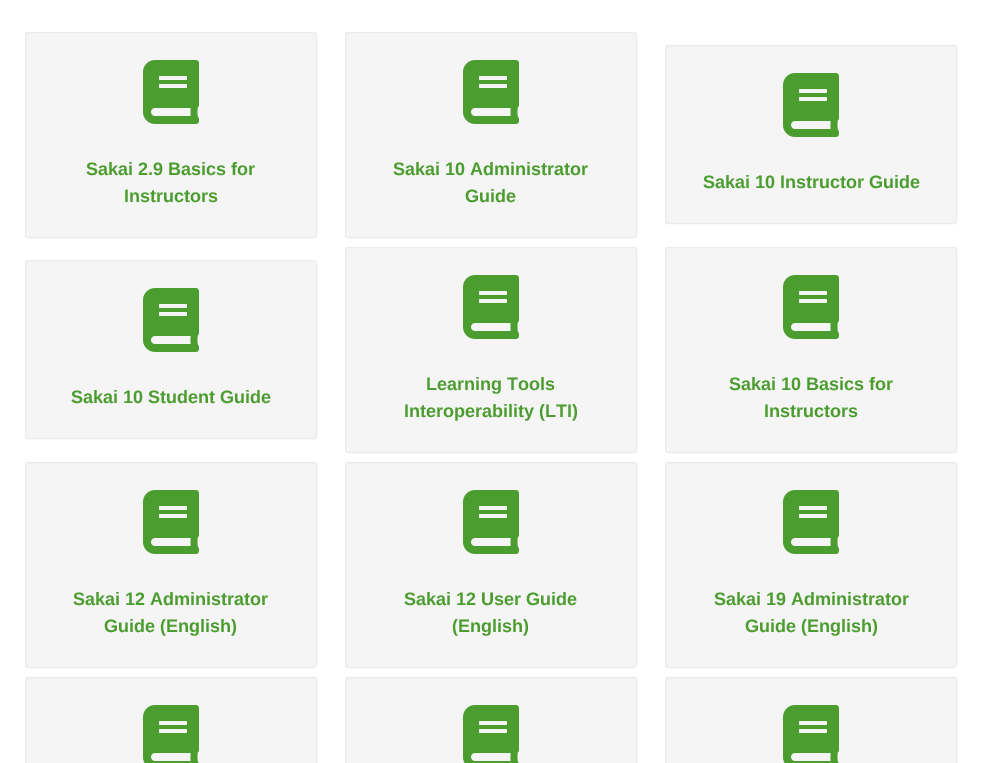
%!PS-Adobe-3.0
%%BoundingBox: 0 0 982 763
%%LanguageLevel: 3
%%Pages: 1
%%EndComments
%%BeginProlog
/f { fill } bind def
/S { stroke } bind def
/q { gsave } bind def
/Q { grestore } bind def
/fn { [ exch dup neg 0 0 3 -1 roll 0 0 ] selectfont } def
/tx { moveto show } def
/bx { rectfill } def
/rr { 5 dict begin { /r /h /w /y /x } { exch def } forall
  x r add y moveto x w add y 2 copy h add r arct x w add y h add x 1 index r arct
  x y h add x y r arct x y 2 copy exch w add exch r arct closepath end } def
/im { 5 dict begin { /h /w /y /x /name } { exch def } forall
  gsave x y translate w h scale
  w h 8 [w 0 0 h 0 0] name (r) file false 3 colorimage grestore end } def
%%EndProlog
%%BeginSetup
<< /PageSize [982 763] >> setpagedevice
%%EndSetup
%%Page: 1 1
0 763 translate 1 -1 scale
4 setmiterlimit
1 setgray
0 0 982 763 bx
0.961 setgray
25.5 32.5 291 205 2.5 rr q f Q
0.922 setgray
S
(image0.raw) 143 60 56 64 im
/LiberationSans-Bold 18 fn
0.298 0.616 0.184 setrgbcolor
(Sakai 2.9 Basics for) 86 175 tx
(Instructors) 124 202 tx
0.961 setgray
345.5 32.5 291 205 2.5 rr q f Q
0.922 setgray
S
(image0.raw) 463 60 56 64 im
0.298 0.616 0.184 setrgbcolor
(Sakai 10 Administrator) 393 175 tx
(Guide) 465 202 tx
0.961 setgray
665.5 45.5 291 178 2.5 rr q f Q
0.922 setgray
S
(image0.raw) 783 73 56 64 im
0.298 0.616 0.184 setrgbcolor
(Sakai 10 Instructor Guide) 703 188 tx
0.961 setgray
25.5 260.5 291 178 2.5 rr q f Q
0.922 setgray
S
(image0.raw) 143 288 56 64 im
0.298 0.616 0.184 setrgbcolor
(Sakai 10 Student Guide) 71 403 tx
0.961 setgray
345.5 247.5 291 205 2.5 rr q f Q
0.922 setgray
S
(image0.raw) 463 275 56 64 im
0.298 0.616 0.184 setrgbcolor
(Learning Tools) 426 390 tx
(Interoperability \(LTI\)) 404 417 tx
0.961 setgray
665.5 247.5 291 205 2.5 rr q f Q
0.922 setgray
S
(image0.raw) 783 275 56 64 im
0.298 0.616 0.184 setrgbcolor
(Sakai 10 Basics for) 729 390 tx
(Instructors) 764 417 tx
0.961 setgray
25.5 462.5 291 205 2.5 rr q f Q
0.922 setgray
S
(image0.raw) 143 490 56 64 im
0.298 0.616 0.184 setrgbcolor
(Sakai 12 Administrator) 73 605 tx
(Guide \(English\)) 104 632 tx
0.961 setgray
345.5 462.5 291 205 2.5 rr q f Q
0.922 setgray
S
(image0.raw) 463 490 56 64 im
0.298 0.616 0.184 setrgbcolor
(Sakai 12 User Guide) 404 605 tx
(\(English\)) 452 632 tx
0.961 setgray
665.5 462.5 291 205 2.5 rr q f Q
0.922 setgray
S
(image0.raw) 783 490 56 64 im
0.298 0.616 0.184 setrgbcolor
(Sakai 19 Administrator) 714 605 tx
(Guide \(English\)) 745 632 tx
0.961 setgray
25.5 677.5 291 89 2.5 rr q f Q
0.922 setgray
S
(image1.raw) 143 705 56 58 im
0.961 setgray
345.5 677.5 291 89 2.5 rr q f Q
0.922 setgray
S
(image1.raw) 463 705 56 58 im
0.961 setgray
665.5 677.5 291 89 2.5 rr q f Q
0.922 setgray
S
(image1.raw) 783 705 56 58 im
showpage
%%EOF
